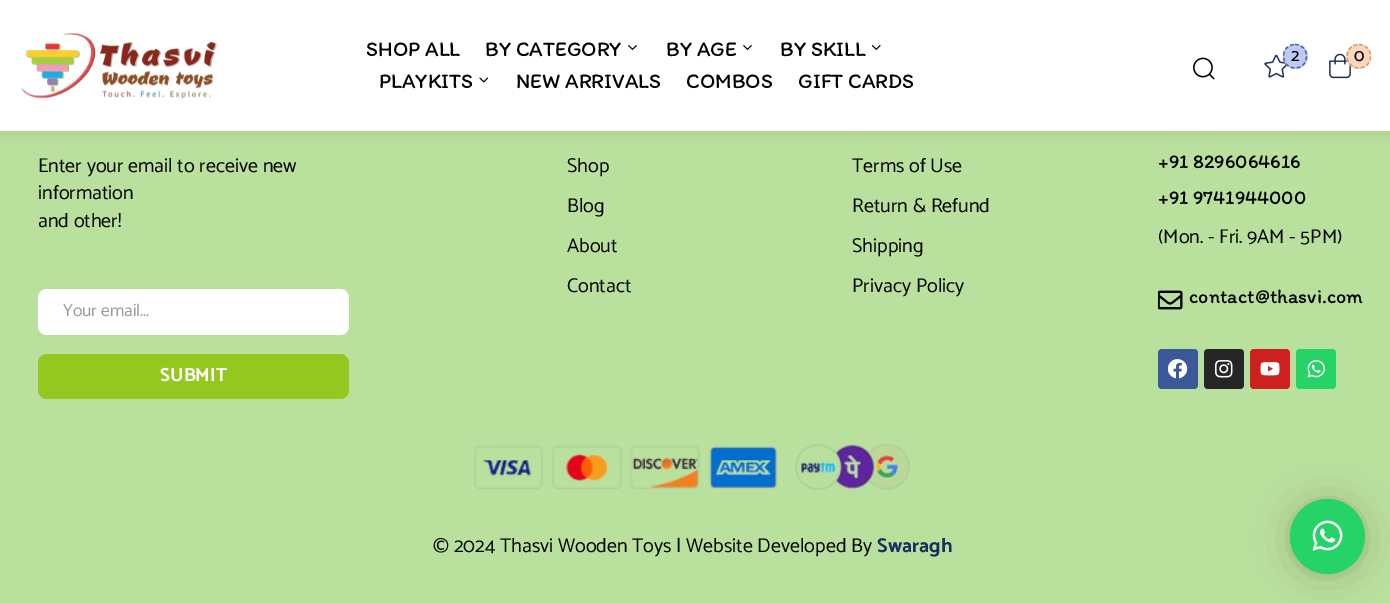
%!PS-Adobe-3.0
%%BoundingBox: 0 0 1390 603
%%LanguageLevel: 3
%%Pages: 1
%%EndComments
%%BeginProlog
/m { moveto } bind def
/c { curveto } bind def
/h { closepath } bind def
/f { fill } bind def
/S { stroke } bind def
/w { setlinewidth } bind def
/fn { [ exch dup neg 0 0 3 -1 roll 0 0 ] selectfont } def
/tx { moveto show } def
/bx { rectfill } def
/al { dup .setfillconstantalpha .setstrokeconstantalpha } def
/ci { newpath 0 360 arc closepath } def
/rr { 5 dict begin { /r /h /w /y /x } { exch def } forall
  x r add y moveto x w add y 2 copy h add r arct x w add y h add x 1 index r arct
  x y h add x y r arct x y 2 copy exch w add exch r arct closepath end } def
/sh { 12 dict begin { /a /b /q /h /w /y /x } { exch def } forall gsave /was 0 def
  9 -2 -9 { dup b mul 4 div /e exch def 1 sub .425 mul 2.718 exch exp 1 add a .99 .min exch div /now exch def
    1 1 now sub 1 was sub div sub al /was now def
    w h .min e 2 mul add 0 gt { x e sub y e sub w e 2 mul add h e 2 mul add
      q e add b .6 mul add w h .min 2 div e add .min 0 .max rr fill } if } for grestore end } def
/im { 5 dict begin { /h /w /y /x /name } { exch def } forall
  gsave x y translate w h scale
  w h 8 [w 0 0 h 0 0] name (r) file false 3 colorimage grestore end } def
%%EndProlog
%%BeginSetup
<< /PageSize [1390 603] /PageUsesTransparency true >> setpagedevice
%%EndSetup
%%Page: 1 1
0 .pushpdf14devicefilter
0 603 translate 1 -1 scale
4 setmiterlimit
0.729 0.878 0.62 setrgbcolor
0 0 1390 603 bx
0 setgray
1 1 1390 132 0 6 0.08 sh
1 setgray
0 0 1390 131 bx
(image0.raw) 21 33 196 66 im
/Itim-Regular 21.25 fn
0 setgray
(SHOP ALL) 366 56 tx
(BY CATEGORY) 485 56 tx
(image1.raw) 628 45 9 5 im
(BY AGE) 666 56 tx
(image1.raw) 743 45 9 5 im
(BY SKILL) 780 56 tx
(image2.raw) 871 45 10 5 im
(PLAYKITS) 379 88 tx
(image3.raw) 479 77 10 6 im
(NEW ARRIVALS) 516 88 tx
(COMBOS) 686 88 tx
(GIFT CARDS) 798 88 tx
(image4.raw) 1193 57 22 23 im
(image5.raw) 1264 54 24 24 im
0.745 0.792 0.953 setrgbcolor
1295.5 56.5 12.5 ci f
0.29 0.361 0.596 setrgbcolor
1.2 w
[3.75 2.5] 0 setdash
1295 44.5 m 1310.5 44.5 1310.5 68 1295 68 c 1279.5 68 1279.5 44.5 1295 44.5 c h S
/Catamaran-Medium 17.5 fn
0 setgray
(2) 1291 61 tx
(image6.raw) 1329 53 22 26 im
1 0.839 0.749 setrgbcolor
1358.5 56.5 12.5 ci f
0.78 0.604 0.373 setrgbcolor
1359 44.5 m 1374.5 44.5 1374.5 68 1359 68 c 1343 68 1343 44.5 1359 44.5 c h S
0 setgray
(0) 1354 61 tx
/Catamaran-Regular 20 fn
(Enter your email to receive new) 38 172 tx
(information) 38 199 tx
(and other!) 38 227 tx
1 setgray
38 289 311 46 9 rr f
/Catamaran-Regular 17.5 fn
0.6 setgray
(Your email...) 63 316 tx
0.58 0.784 0.118 setrgbcolor
38 354 311 45 9 rr f
/Catamaran-Bold 19 fn
1 setgray
(SUBMIT) 160 381 tx
/Catamaran-Regular 20 fn
0 setgray
(Shop) 567 172 tx
(Blog) 567 212 tx
(About) 567 252 tx
(Contact) 567 292 tx
(Terms of Use) 852 172 tx
(Return & Refund) 852 212 tx
(Shipping) 852 252 tx
(Privacy Policy) 852 292 tx
/Itim-Regular 20 fn
(+91 8296064616) 1158 168 tx
(+91 9741944000) 1158 204 tx
/Catamaran-Regular 20 fn
(\(Mon. - Fri. 9AM - 5PM\)) 1158 243 tx
(image7.raw) 1158 290 25 20 im
/Itim-Regular 20 fn
(contact@thasvi.com) 1189 303 tx
0.231 0.349 0.596 setrgbcolor
1158 349 40 40 4 rr f
(image8.raw) 1168 359 20 20 im
0.149 setgray
1204 349 40 40 4 rr f
(image9.raw) 1215 360 18 18 im
0.804 0.125 0.122 setrgbcolor
1250 349 40 40 4 rr f
(image10.raw) 1260 362 20 14 im
0.145 0.827 0.4 setrgbcolor
1296 349 40 40 4 rr f
(image11.raw) 1307 360 18 18 im
(image12.raw) 474 444 436 46 im
/Catamaran-Regular 20 fn
0 setgray
(© 2024 Thasvi Wooden Toys | Website Developed By) 433 552 tx
/Catamaran-Bold 20 fn
0.118 0.176 0.373 setrgbcolor
(Swaragh) 877 552 tx
0 setgray
1290 501 75 75 37.5 20 0.16 sh
1290 500 75 75 37.5 4 0.06 sh
0.145 0.827 0.4 setrgbcolor
1327.5 536.5 37.5 ci f
(image13.raw) 1312 520 31 31 im
.poppdf14devicefilter showpage
%%EOF
